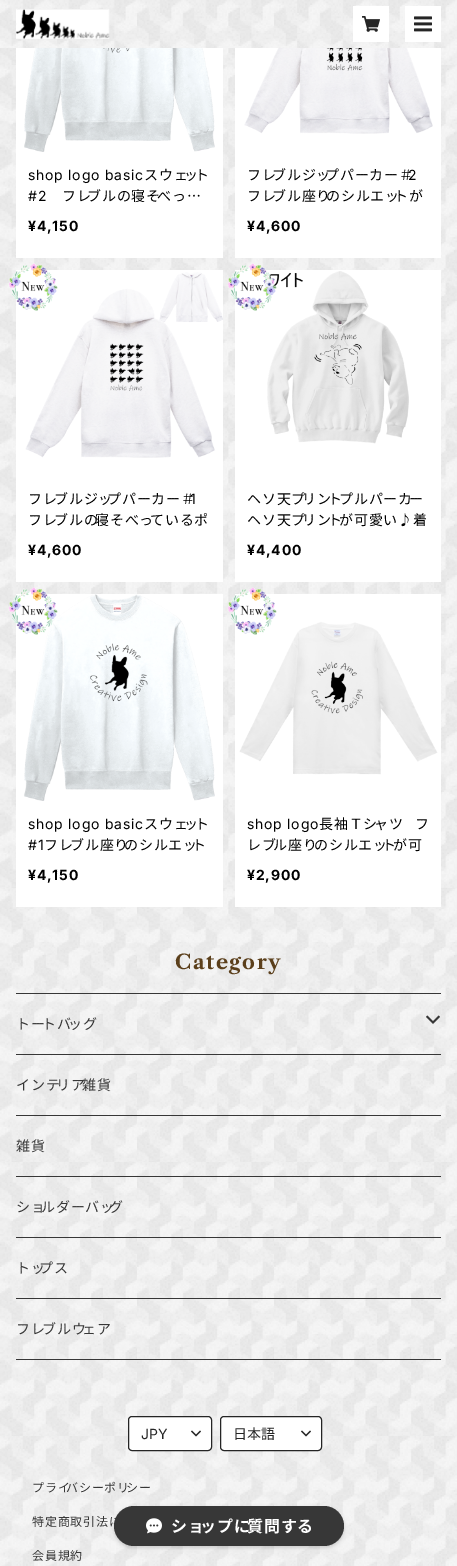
%!PS-Adobe-3.0
%%BoundingBox: 0 0 457 1566
%%LanguageLevel: 3
%%Pages: 1
%%EndComments
%%BeginProlog
/m { moveto } bind def
/f { fill } bind def
/S { stroke } bind def
/q { gsave } bind def
/Q { grestore } bind def
/fn { [ exch dup neg 0 0 3 -1 roll 0 0 ] selectfont } def
/tx { moveto show } def
/bx { rectfill } def
/al { dup .setfillconstantalpha .setstrokeconstantalpha } def
/rr { 5 dict begin { /r /h /w /y /x } { exch def } forall
  x r add y moveto x w add y 2 copy h add r arct x w add y h add x 1 index r arct
  x y h add x y r arct x y 2 copy exch w add exch r arct closepath end } def
/sh { 12 dict begin { /a /b /q /h /w /y /x } { exch def } forall gsave /was 0 def
  9 -2 -9 { dup b mul 4 div /e exch def 1 sub .425 mul 2.718 exch exp 1 add a .99 .min exch div /now exch def
    1 1 now sub 1 was sub div sub al /was now def
    w h .min e 2 mul add 0 gt { x e sub y e sub w e 2 mul add h e 2 mul add
      q e add b .6 mul add w h .min 2 div e add .min 0 .max rr fill } if } for grestore end } def
/im { 5 dict begin { /h /w /y /x /name } { exch def } forall
  gsave x y translate w h scale
  w h 8 [w 0 0 h 0 0] name (r) file false 3 colorimage grestore end } def
%%EndProlog
%%BeginSetup
<< /PageSize [457 1566] /PageUsesTransparency true >> setpagedevice
%%EndSetup
%%Page: 1 1
0 .pushpdf14devicefilter
0 1566 translate 1 -1 scale
4 setmiterlimit
1 setgray
0 0 457 1566 bx
(image0.raw) 0 48 457 1518 im
(image1.raw) 0 0 457 48 im
(image2.raw) 16 9 94 30 im
353 6 36 36 bx
(image3.raw) 362 16 18 16 im
405 6 36 36 bx
(image4.raw) 414 16 18 16 im
16 48 207 210 bx
(image5.raw) 24 48 191 104 im
/Inter-Regular 14 fn
0 setgray
28 180 m 0.75 0 (shop logo basic) ashow
/NotoSansJP-Regular 14 fn
144 180 m 0.75 0 (スウェ) ashow
184 180 m 0.75 0 (ッ) ashow
195 180 m 0.75 0 (ト) ashow
/Inter-Regular 14 fn
28 201 m 0.75 0 (#2) ashow
/NotoSansJP-Regular 14 fn
62 201 m 0.75 0 (フレ) ashow
87 201 m 0.75 0 (ブルの寝そ) ashow
157 201 m 0.75 0 (べっ…) ashow
/Inter-Bold 14 fn
28 231 m 0.75 0 (¥4,150) ashow
1 setgray
235 48 206 210 bx
(image6.raw) 244 48 189 86 im
/NotoSansJP-Regular 14 fn
0 setgray
247 180 m 0.75 0 (フレ) ashow
272 180 m 0.75 0 (ブルジッ) ashow
325 180 m 0.75 0 (プパーカー＃) ashow
/Inter-Regular 14 fn
408 180 m 0.75 0 (2) ashow
/NotoSansJP-Regular 14 fn
247 201 m 0.75 0 (フレ) ashow
272 201 m 0.75 0 (ブル座り) ashow
326 201 m 0.75 0 (のシルエッ) ashow
394 201 m 0.75 0 (トが) ashow
/Inter-Bold 14 fn
247 231 m 0.75 0 (¥4,600) ashow
1 setgray
16 270 207 312 bx
(image8.raw) 18 272 205 186 im
(image7.raw) 9 263 49 48 im
/NotoSansJP-Regular 14 fn
0 setgray
28 504 m 0.75 0 (フレ) ashow
54 504 m 0.75 0 (ブルジッ) ashow
107 504 m 0.75 0 (プパーカー＃) ashow
/Inter-Regular 14 fn
190 504 m 0.75 0 (1) ashow
/NotoSansJP-Regular 14 fn
28 525 m 0.75 0 (フレ) ashow
54 525 m 0.75 0 (ブルの) ashow
95 525 m 0.75 0 (寝そべっ) ashow
150 525 m 0.75 0 (ているポ) ashow
/Inter-Bold 14 fn
28 555 m 0.75 0 (¥4,600) ashow
1 setgray
235 270 206 312 bx
(image10.raw) 267 271 142 173 im
(image9.raw) 227 263 50 48 im
/NotoSansJP-Regular 14 fn
0 setgray
247 504 m 0.75 0 (ヘソ天プ) ashow
302 504 m 0.75 0 (リン) ashow
328 504 m 0.75 0 (ト) ashow
339 504 m 0.75 0 (プルパーカ) ashow
409 504 m 0.75 0 (ー) ashow
247 525 m 0.75 0 (ヘソ天プ) ashow
302 525 m 0.75 0 (リン) ashow
328 525 m 0.75 0 (ト) ashow
339 525 m 0.75 0 (が可愛い♪着) ashow
/Inter-Bold 14 fn
247 555 m 0.75 0 (¥4,400) ashow
1 setgray
16 594 207 313 bx
(image12.raw) 23 594 192 207 im
(image11.raw) 8 587 50 48 im
/Inter-Regular 14 fn
0 setgray
28 829 m 0.75 0 (shop logo basic) ashow
/NotoSansJP-Regular 14 fn
144 829 m 0.75 0 (スウェ) ashow
184 829 m 0.75 0 (ッ) ashow
195 829 m 0.75 0 (ト) ashow
/Inter-Regular 14 fn
28 850 m 0.75 0 (#1) ashow
/NotoSansJP-Regular 14 fn
44 850 m 0.75 0 (フレ) ashow
70 850 m 0.75 0 (ブル座り) ashow
124 850 m 0.75 0 (のシルエッ) ashow
192 850 m 0.75 0 (ト) ashow
/Inter-Bold 14 fn
28 880 m 0.75 0 (¥4,150) ashow
1 setgray
235 594 206 313 bx
(image14.raw) 239 621 199 154 im
(image13.raw) 227 587 50 48 im
/Inter-Regular 14 fn
0 setgray
247 829 m 0.75 0 (shop logo) ashow
/NotoSansJP-Regular 14 fn
319 829 m 0.75 0 (長袖Ｔシ) ashow
374 829 m 0.75 0 (ャツ) ashow
400 829 m 0.75 0 (　フ) ashow
247 850 m 0.75 0 (レブ) ashow
273 850 m 0.75 0 (ル座り) ashow
314 850 m 0.75 0 (のシルエッ) ashow
382 850 m 0.75 0 (ト) ashow
393 850 m 0.75 0 (が可) ashow
/Inter-Bold 14 fn
247 880 m 0.75 0 (¥2,900) ashow
/LibreCaslonText-Bold 20 fn
0.357 0.247 0.106 setrgbcolor
175 969 m 1.5 0 (Category) ashow
0.216 setgray
16 993 425 1 bx
16 1359 425 1 bx
/NotoSansJP-Regular 14 fn
16 1029 m 0.75 0 (トー) ashow
42 1029 m 0.75 0 (トバ) ashow
68 1029 m 0.75 0 (ッグ) ashow
(image15.raw) 426 1015 14 9 im
16 1054 425 1 bx
16 1090 m 0.75 0 (インテ) ashow
56 1090 m 0.75 0 (リア) ashow
82 1090 m 0.75 0 (雑貨) ashow
16 1115 425 1 bx
16 1151 m 0.75 0 (雑貨) ashow
16 1176 425 1 bx
16 1212 m 0.75 0 (ショ) ashow
41 1212 m 0.75 0 (ルダーバッ) ashow
109 1212 m 0.75 0 (グ) ashow
16 1237 425 1 bx
16 1273 m 0.75 0 (トッ) ashow
39 1273 m 0.75 0 (プス) ashow
16 1298 425 1 bx
16 1334 m 0.75 0 (フレ) ashow
42 1334 m 0.75 0 (ブルウ) ashow
82 1334 m 0.75 0 (ェア) ashow
1 setgray
128.5 1416.5 83 34 3.5 rr q f Q
0.145 setgray
S
/Inter-Regular 14 fn
(JPY) 141 1439 tx
(image16.raw) 191 1430 10 7 im
1 setgray
220.5 1416.5 101 34 3.5 rr q f Q
0.145 setgray
S
/NotoSansJP-Regular 14 fn
(日本語) 233 1439 tx
(image16.raw) 301 1430 10 7 im
/NotoSansJP-Regular 12 fn
0.216 setgray
32 1492 m 0.75 0 (プライ) ashow
66 1492 m 0.75 0 (バシーポリ) ashow
126 1492 m 0.75 0 (シー) ashow
32 1526 m 0.75 0 (特定商取引法に) ashow
32 1560 m 0.75 0 (会員規約) ashow
0.188 setgray
114 1508 230 40 20 2 0.2 sh
0.216 setgray
114 1506 230 40 20 rr f
(image17.raw) 146 1518 16 16 im
/NotoSansJP-Bold 16 fn
1 setgray
171 1532 m 0.75 0 (ショ) ashow
200 1532 m 0.75 0 (ップに) ashow
247 1532 m 0.75 0 (質問する) ashow
.poppdf14devicefilter showpage
%%EOF
